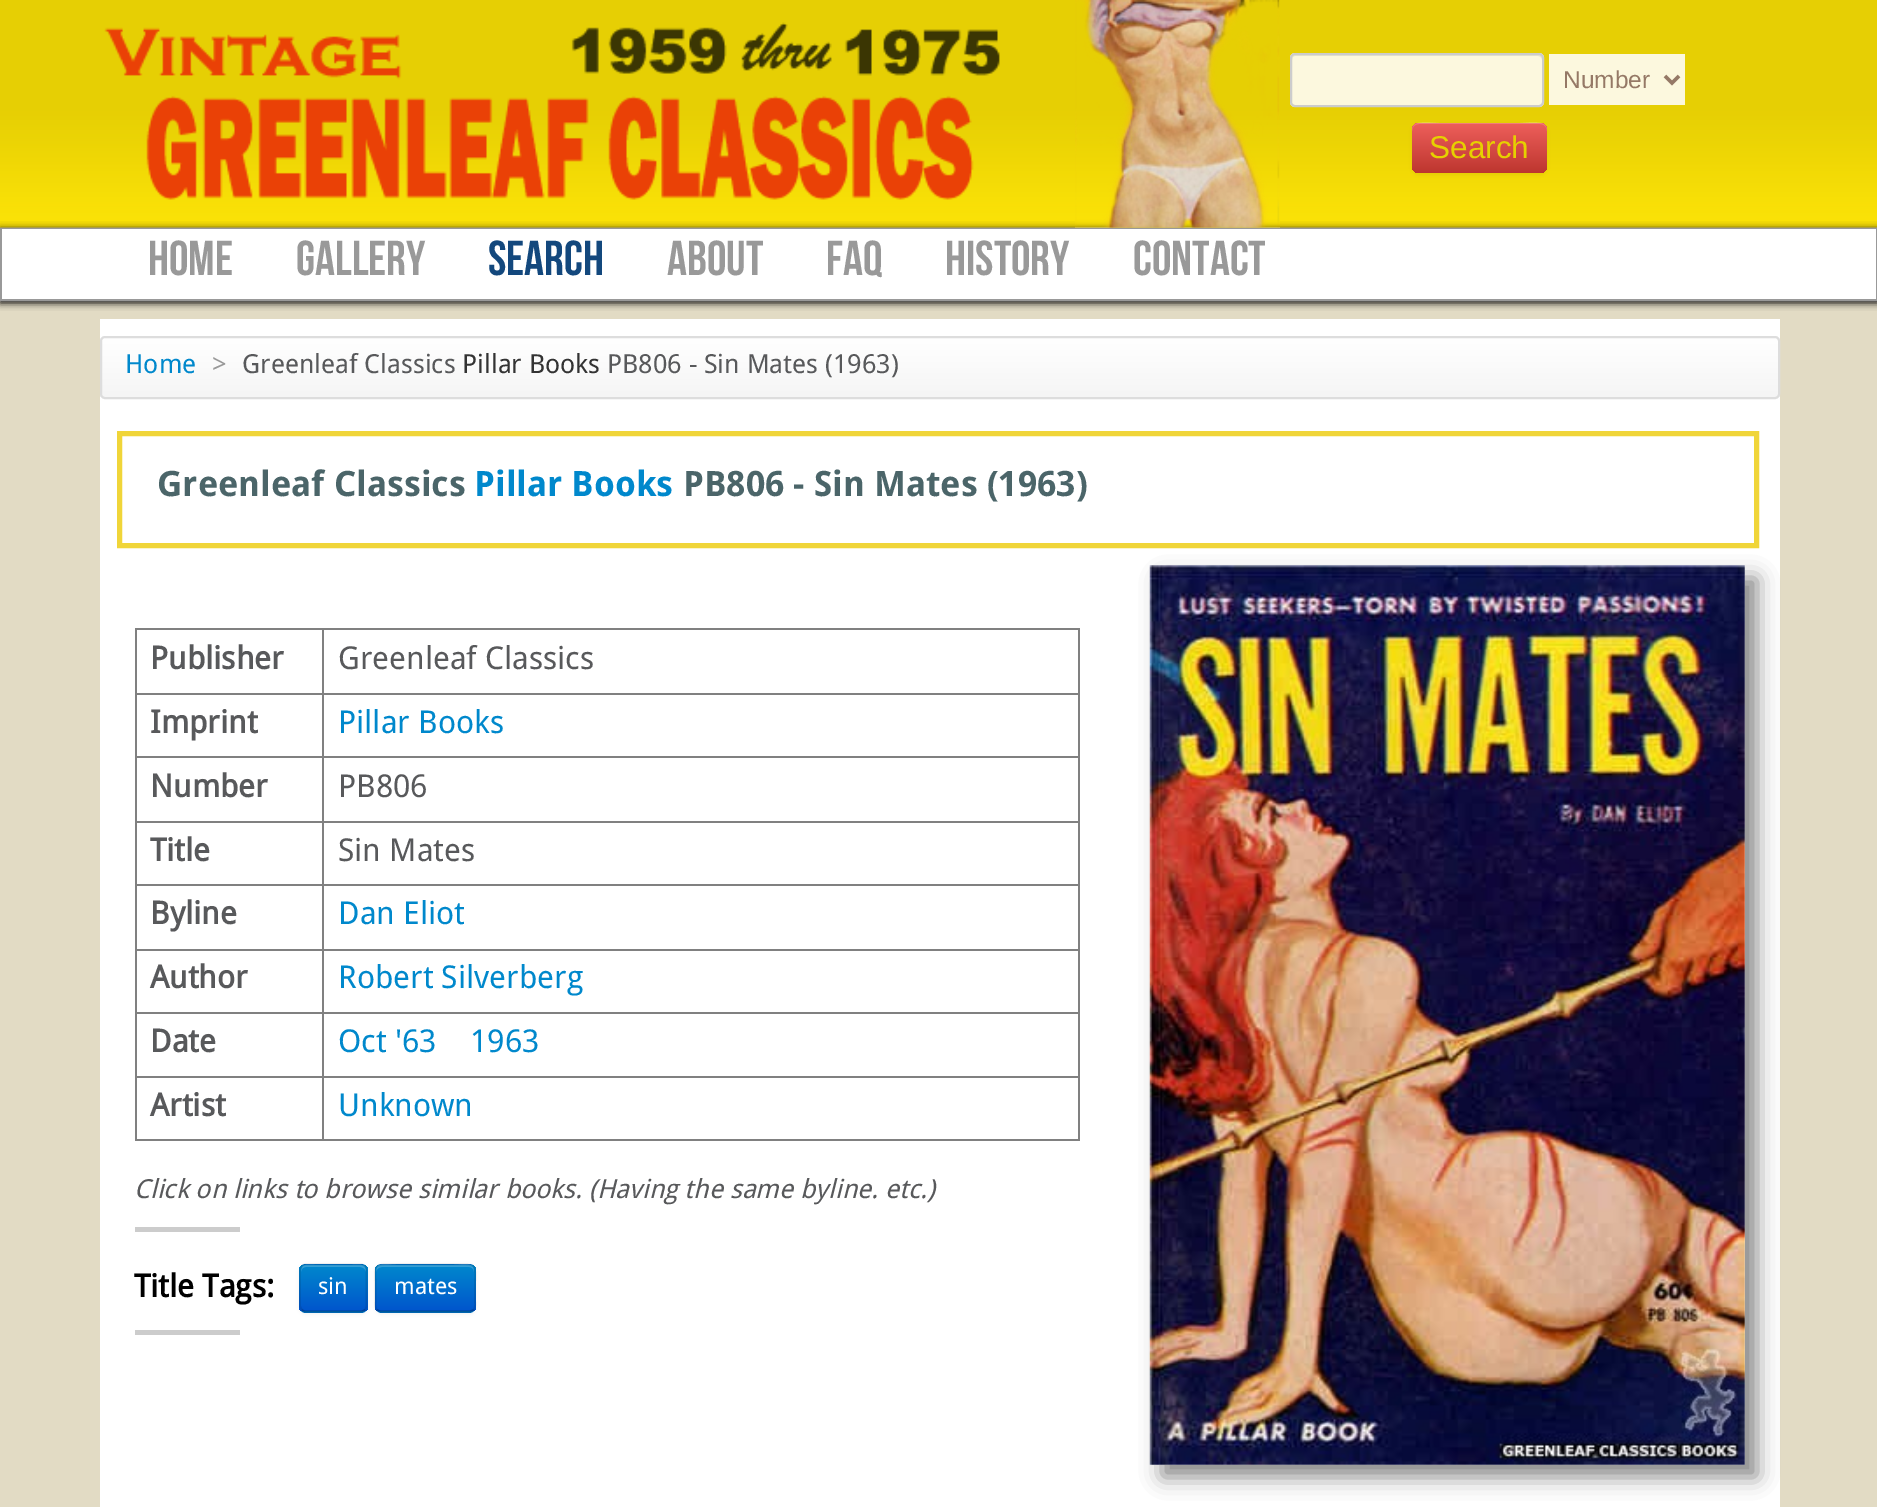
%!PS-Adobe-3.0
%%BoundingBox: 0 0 1877 1507
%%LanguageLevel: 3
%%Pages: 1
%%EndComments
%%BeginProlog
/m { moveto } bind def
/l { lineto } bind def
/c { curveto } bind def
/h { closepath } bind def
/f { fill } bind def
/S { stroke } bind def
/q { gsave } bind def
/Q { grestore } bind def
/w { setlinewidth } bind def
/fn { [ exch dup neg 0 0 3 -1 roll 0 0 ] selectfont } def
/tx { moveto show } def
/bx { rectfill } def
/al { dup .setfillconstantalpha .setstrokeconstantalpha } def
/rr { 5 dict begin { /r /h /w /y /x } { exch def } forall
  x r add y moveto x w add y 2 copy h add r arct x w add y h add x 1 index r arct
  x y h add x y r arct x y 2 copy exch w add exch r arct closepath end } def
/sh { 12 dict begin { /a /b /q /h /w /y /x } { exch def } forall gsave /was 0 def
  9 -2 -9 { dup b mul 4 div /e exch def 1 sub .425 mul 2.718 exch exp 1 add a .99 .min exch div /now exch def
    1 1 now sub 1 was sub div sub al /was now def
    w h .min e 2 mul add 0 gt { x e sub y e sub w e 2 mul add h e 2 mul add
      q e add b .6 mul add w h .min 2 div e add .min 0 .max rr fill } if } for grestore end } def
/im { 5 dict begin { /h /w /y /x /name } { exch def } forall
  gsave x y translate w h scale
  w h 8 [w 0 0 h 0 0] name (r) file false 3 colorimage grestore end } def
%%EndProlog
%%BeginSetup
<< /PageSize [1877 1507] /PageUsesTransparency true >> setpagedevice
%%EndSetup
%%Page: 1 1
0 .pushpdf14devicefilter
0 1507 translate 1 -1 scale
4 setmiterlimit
0.886 0.859 0.769 setrgbcolor
0 0 1877 1507 bx
(image0.raw) 0 0 1877 228 im
(image1.raw) 104 22 896 178 im
0 setgray
0 229 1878 74 0 3.5 1 sh
(image2.raw) 1075 0 205 228 im
0.988 0.973 0.871 setrgbcolor
1290 53 254 54 5 rr f
0.914 0.898 0.804 setrgbcolor
1295 56 m 1538 56 l 1540 56 1542 58 1542 60 c 1542 58 l 1542 56 1540 54 1538 54 c 1296 54 l 1294 54 1292 56 1292 58 c 1292 60 l 1292 58 1293 56 1295 56 c h f
0.8 setgray
2 w
1291 54 252 52 4 rr S
0.988 0.973 0.871 setrgbcolor
1549 54 136 51 bx
0.584 0.475 0.4 setrgbcolor
3.5 w
1665 76 m 1672 83 l 1679 76 l S
/LiberationSans-Regular 24.5 fn
(Number) 1563 88 tx
0 setgray
1412 124 135 51 7 2 0.05 sh
q 1412 123 135 50 7 rr clip newpath
<< /ShadingType 2 /ColorSpace /DeviceRGB /Coords [1480 123 1480 173] /Extend [true true] /Function << /FunctionType 2 /Domain [0 1] /C0 [0.933 0.373 0.357] /C1 [0.741 0.212 0.184] /N 1 >> >> shfill Q
0.2 al
1 setgray
1419 124 m 1540 124 l 1544 124 1547 127 1547 131 c 1547 118 1526 123 1520 123 c 1439 123 l 1433 123 1412 118 1412 131 c 1412 127 1415 124 1419 124 c h f
/LiberationSans-Regular 31.5 fn
1 al
0.902 0.816 0 setrgbcolor
(Search) 1429 158 tx
0.6 setgray
2 w
1 229 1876 71 rectstroke
1 setgray
2 229 1874 70 bx
/BebasNeue-Regular 49 fn
0.6 setgray
(HOME) 148 275 tx
(GALLERY) 296 275 tx
0.075 0.282 0.49 setrgbcolor
(SEARCH) 488 275 tx
0.6 setgray
(ABOUT) 667 275 tx
(FAQ) 826 275 tx
(HISTORY) 945 275 tx
(CONTACT) 1133 275 tx
1 setgray
100 319 1680 1188 bx
q
100 336 1680 63 5 rr clip newpath
q 100 338 m 1780 338 l 1780 397 l 100 397 l h clip newpath
<< /ShadingType 2 /ColorSpace /DeviceRGB /Coords [940 338 940 397] /Extend [true true] /Function << /FunctionType 2 /Domain [0 1] /C0 [1 1 1] /C1 [0.961 0.961 0.961] /N 1 >> >> shfill Q
Q
0.867 setgray
101 337 1678 61 4 rr S
/DroidSans-Regular 26.25 fn
0 0.533 0.8 setrgbcolor
(Home) 125 373 tx
0.6 setgray
(>) 212 373 tx
0.345 0.349 0.357 setrgbcolor
(Greenleaf Classics) 242 373 tx
0.2 setgray
(Pillar Books) 462 373 tx
0.345 0.349 0.357 setrgbcolor
(PB806 - Sin Mates \(1963\)) 607 373 tx
0.941 0.835 0.224 setrgbcolor
5 w
119.5 433.5 1637 112 rectstroke
/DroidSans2-Bold 35 fn
0.294 0.396 0.412 setrgbcolor
(Greenleaf Classics) 157 496 tx
0 0.533 0.8 setrgbcolor
(Pillar Books) 474 496 tx
0.294 0.396 0.412 setrgbcolor
(PB806 - Sin Mates \(1963\)) 683 496 tx
0.502 setgray
135 628 945 2 bx
1078 628 2 513 bx
135 1139 945 2 bx
135 628 2 513 bx
/DroidSans-Bold 31.5 fn
0.345 0.349 0.357 setrgbcolor
(Publisher) 150 669 tx
0.502 setgray
322 693 758 2 bx
322 756 758 2 bx
322 821 758 2 bx
322 884 758 2 bx
322 949 758 2 bx
322 1012 758 2 bx
322 1076 758 2 bx
322 1076 2 65 bx
135 1076 189 2 bx
322 1012 2 66 bx
135 1012 189 2 bx
322 949 2 64 bx
135 949 189 2 bx
322 884 2 66 bx
135 884 189 2 bx
322 821 2 65 bx
135 821 189 2 bx
322 756 2 67 bx
135 756 189 2 bx
322 693 2 65 bx
135 693 189 2 bx
322 628 2 67 bx
/DroidSans-Regular 31.5 fn
0.345 0.349 0.357 setrgbcolor
(Greenleaf Classics) 338 669 tx
/DroidSans-Bold 31.5 fn
(Imprint) 150 733 tx
/DroidSans-Regular 31.5 fn
0 0.533 0.8 setrgbcolor
(Pillar Books) 338 733 tx
/DroidSans-Bold 31.5 fn
0.345 0.349 0.357 setrgbcolor
(Number) 150 797 tx
/DroidSans-Regular 31.5 fn
(PB806) 338 797 tx
/DroidSans-Bold 31.5 fn
(Title) 150 861 tx
/DroidSans-Regular 31.5 fn
(Sin Mates) 338 861 tx
/DroidSans-Bold 31.5 fn
(Byline) 150 924 tx
/DroidSans-Regular 31.5 fn
0 0.533 0.8 setrgbcolor
(Dan Eliot) 338 924 tx
/DroidSans-Bold 31.5 fn
0.345 0.349 0.357 setrgbcolor
(Author) 150 988 tx
/DroidSans-Regular 31.5 fn
0 0.533 0.8 setrgbcolor
(Robert Silverberg) 338 988 tx
/DroidSans-Bold 31.5 fn
0.345 0.349 0.357 setrgbcolor
(Date) 150 1052 tx
/DroidSans-Regular 31.5 fn
0 0.533 0.8 setrgbcolor
(Oct '63) 338 1052 tx
(1963) 470 1052 tx
/DroidSans-Bold 31.5 fn
0.345 0.349 0.357 setrgbcolor
(Artist) 150 1116 tx
/DroidSans-Regular 31.5 fn
0 0.533 0.8 setrgbcolor
(Unknown) 338 1116 tx
/DroidSans-Italic 26.25 fn
0.345 0.349 0.357 setrgbcolor
(Click on links to browse similar books. \(Having the same byline. etc.\)) 134 1198 tx
0.8 setgray
135 1227 105 5 bx
/DroidSans-Bold 31.5 fn
0 setgray
(Title Tags:) 134 1297 tx
299 1265 69 49 7 2 0.05 sh
0 0.455 0.8 setrgbcolor
299 1264 69 49 7 rr f
q
299 1264 69 49 7 rr clip newpath
q 299 1265 m 368 1265 l 368 1311 l 299 1311 l h clip newpath
<< /ShadingType 2 /ColorSpace /DeviceRGB /Coords [333 1265 333 1311] /Extend [true true] /Function << /FunctionType 2 /Domain [0 1] /C0 [0 0.533 0.8] /C1 [0 0.333 0.8] /N 1 >> >> shfill Q
Q
0.2 al
1 setgray
306 1267 m 360 1267 l 363 1267 366 1269 366 1272 c 366 1263 360 1265 352 1265 c 315 1265 l 307 1265 301 1263 301 1272 c 301 1269 303 1267 306 1267 c h f
0.25 al
0 setgray
1.8 w
365 1310 m 363.5 1311 362 1311.5 360.5 1311.5 c 306 1311.5 l 304.5 1311.5 303 1311 302 1310 c S
0.1 al
302 1310 m 301 1308.5 300 1307 300 1305.5 c 300 1270.5 l 300 1269 301 1267.5 302 1266 c 303 1265 304.5 1264.5 306 1264.5 c 360.5 1264.5 l 362 1264.5 363.5 1265 365 1266 c 366 1267.5 366.5 1269 366.5 1270.5 c 366.5 1305.5 l 366.5 1307 366 1308.5 365 1310 c S
/DroidSans-Regular 23 fn
1 al
1 setgray
(sin) 318 1294 tx
0 setgray
375 1265 101 49 7 2 0.05 sh
0 0.455 0.8 setrgbcolor
375 1264 101 49 7 rr f
q
375 1264 101 49 7 rr clip newpath
q 375 1265 m 476 1265 l 476 1311 l 375 1311 l h clip newpath
<< /ShadingType 2 /ColorSpace /DeviceRGB /Coords [425 1265 425 1311] /Extend [true true] /Function << /FunctionType 2 /Domain [0 1] /C0 [0 0.533 0.8] /C1 [0 0.333 0.8] /N 1 >> >> shfill Q
Q
0.2 al
1 setgray
382 1267 m 469 1267 l 472 1267 474 1269 474 1272 c 474 1261 463 1265 454 1265 c 396 1265 l 387 1265 376 1261 376 1272 c 376 1269 379 1267 382 1267 c h f
0.25 al
0 setgray
473.5 1310 m 472 1311 470.5 1311.5 469 1311.5 c 381.5 1311.5 l 380 1311.5 378.5 1311 377 1310 c S
0.1 al
377 1310 m 374.5 1307 375.5 1303 375.5 1299.5 c 375.5 1288 l 375.5 1263 371.5 1264.5 396 1264.5 c 454.5 1264.5 l 479 1264.5 475 1263 475 1288 c 475 1299.5 l 475 1303 476 1307 473.5 1310 c S
1 al
1 setgray
(mates) 394 1294 tx
0.8 setgray
135 1330 105 5 bx
0.533 setgray
1162 578 595 899 0 10.5 1 sh
(image3.raw) 1149 565 596 900 im
.poppdf14devicefilter showpage
%%EOF
